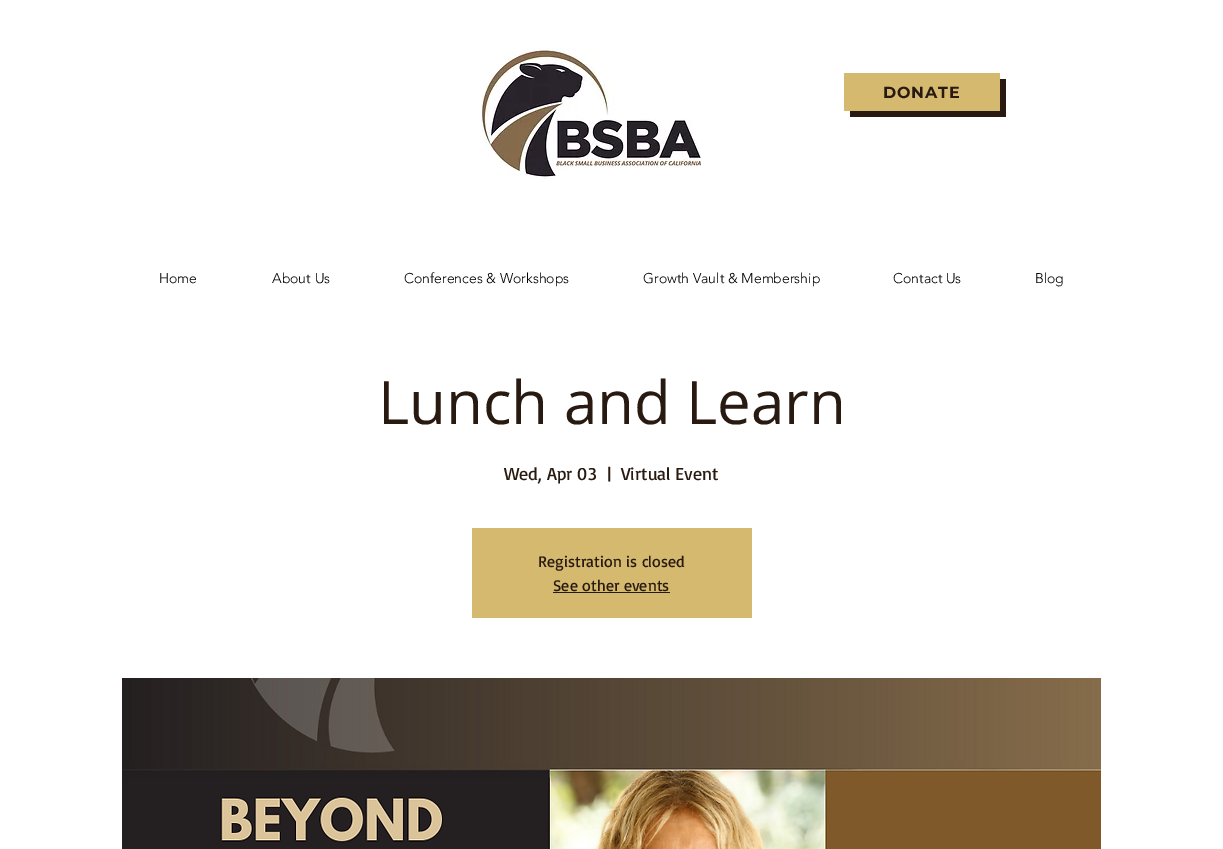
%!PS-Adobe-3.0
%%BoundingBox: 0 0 1223 849
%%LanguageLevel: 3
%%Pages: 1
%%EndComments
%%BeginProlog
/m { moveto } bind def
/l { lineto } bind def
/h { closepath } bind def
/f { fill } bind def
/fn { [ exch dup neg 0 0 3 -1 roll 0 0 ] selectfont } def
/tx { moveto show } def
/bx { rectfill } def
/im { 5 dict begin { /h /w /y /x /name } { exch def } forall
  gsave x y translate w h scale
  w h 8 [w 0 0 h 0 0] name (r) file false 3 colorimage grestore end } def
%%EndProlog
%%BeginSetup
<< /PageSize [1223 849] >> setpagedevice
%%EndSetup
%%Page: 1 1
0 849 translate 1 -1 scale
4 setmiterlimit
1 setgray
0 0 1223 849 bx
(image0.raw) 481 48 220 131 im
0.157 0.102 0.063 setrgbcolor
850 111 m 850 117 l 1006 117 l 1006 79 l 1000 79 l 1000 111 l h f
0.831 0.725 0.435 setrgbcolor
844 73 156 38 bx
/Montserrat-Bold 16 fn
0.157 0.102 0.063 setrgbcolor
883 98 m 0.75 0 (DONATE) ashow
/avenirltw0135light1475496-Light 14 fn
0 setgray
(Home) 159 283 tx
(About Us) 272 283 tx
(Conferences & Workshops) 404 283 tx
(Growth Vault & Membership) 643 283 tx
(Contact Us) 893 283 tx
(Blog) 1035 283 tx
/OpenSans-Regular 60 fn
0.157 0.102 0.063 setrgbcolor
(Lunch and Learn) 378 424 tx
/Basic-Regular 18 fn
(Wed, Apr 03) 504 480 tx
(|) 607 480 tx
(Virtual Event) 621 480 tx
0.831 0.725 0.435 setrgbcolor
472 528 280 90 bx
/Basic-Regular 16 fn
0.157 0.102 0.063 setrgbcolor
(Registration is closed) 538 567 tx
(See other events) 553 591 tx
553 592 117 1 bx
(image1.raw) 122 678 979 171 im
showpage
%%EOF
